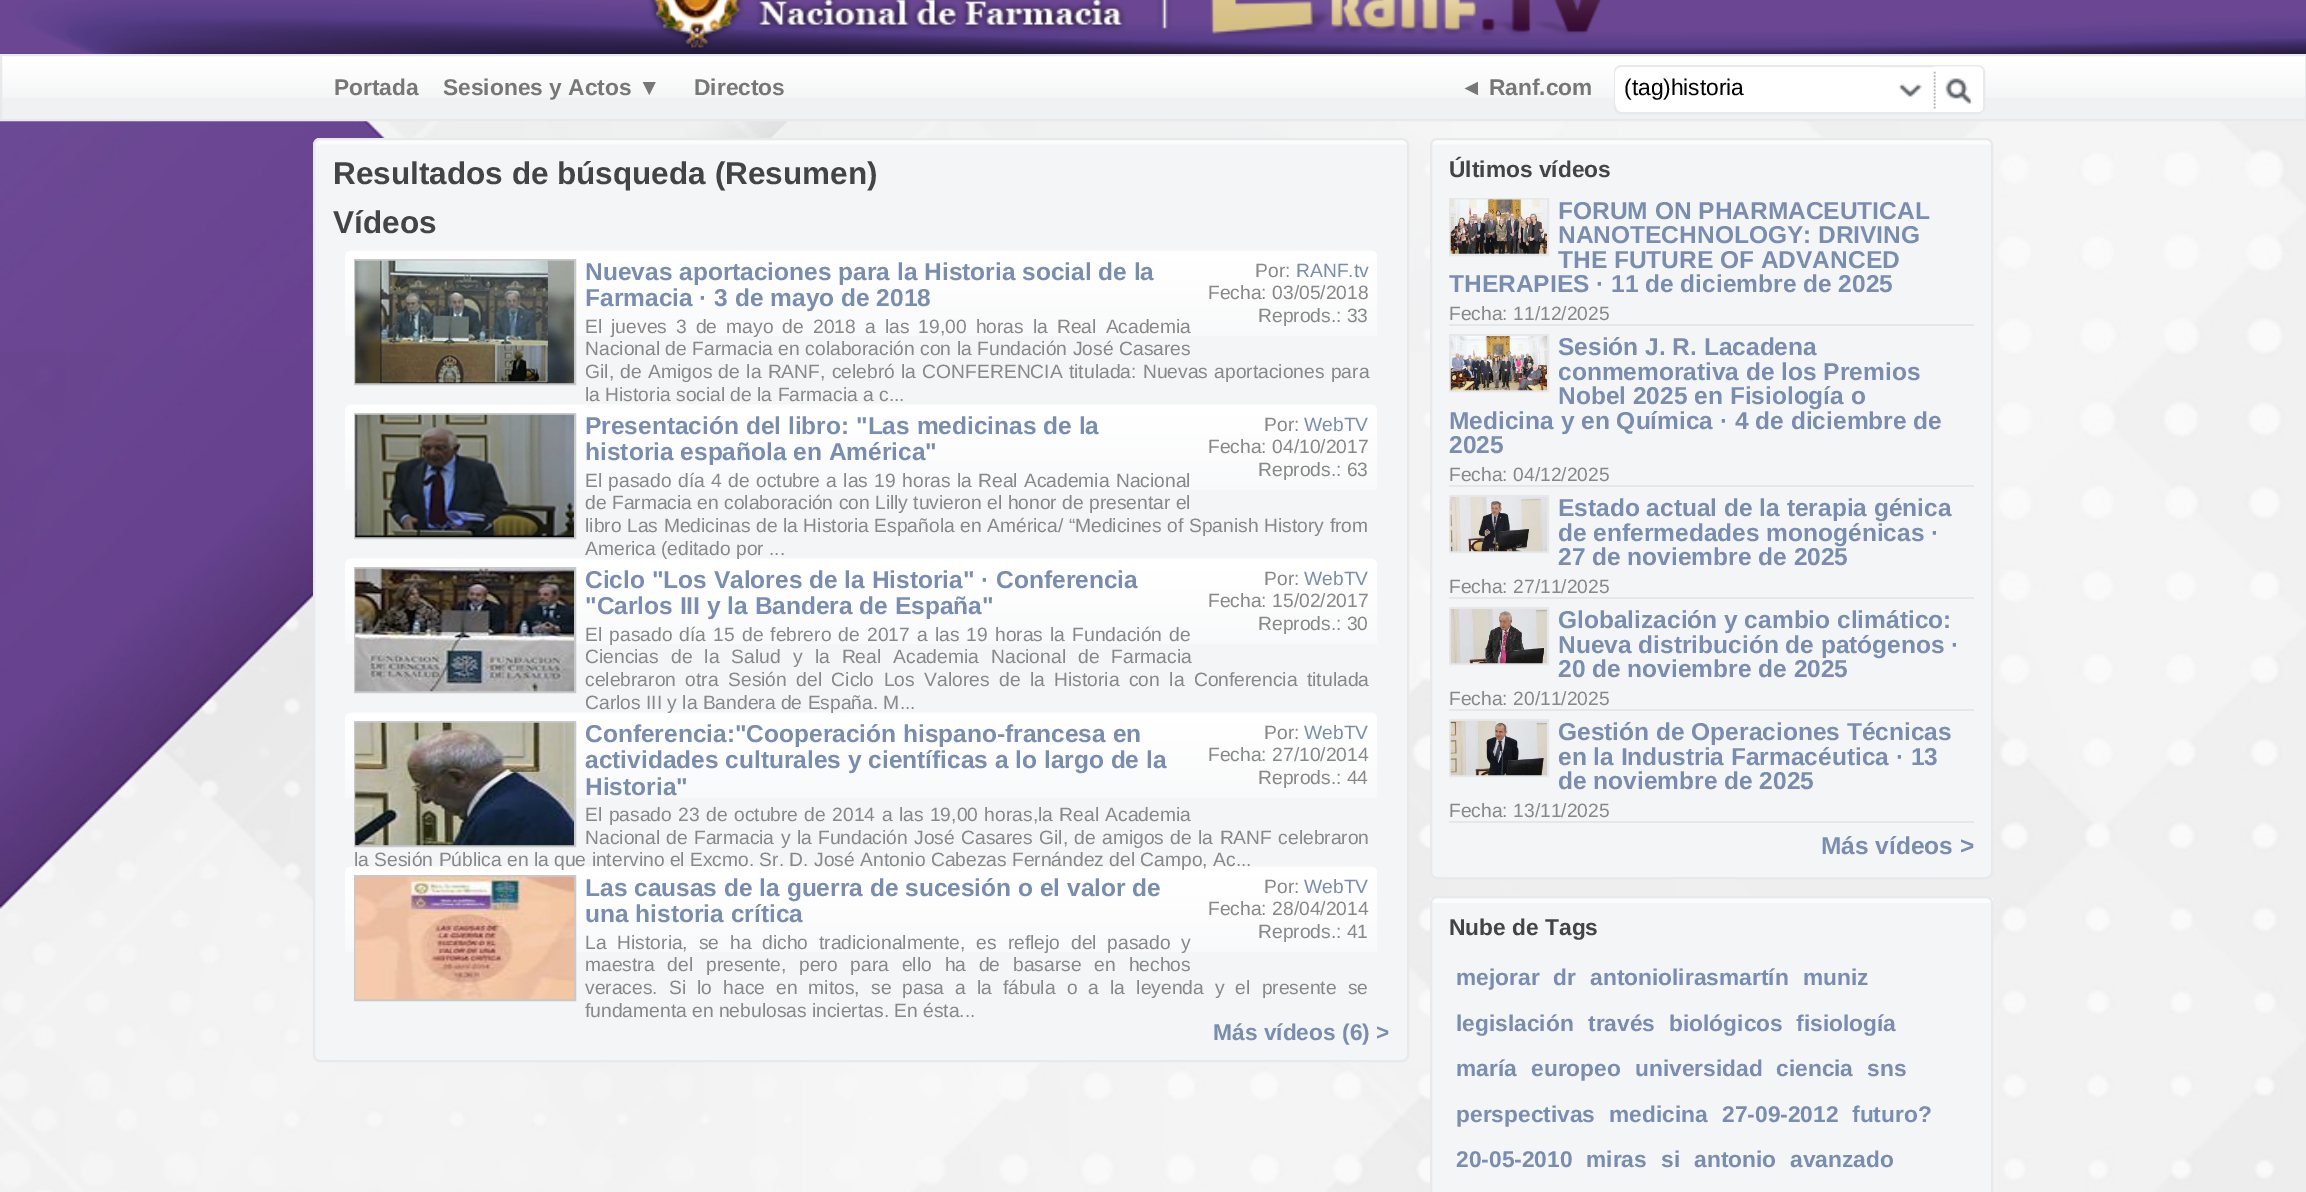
%!PS-Adobe-3.0
%%BoundingBox: 0 0 2306 1192
%%LanguageLevel: 3
%%Pages: 1
%%EndComments
%%BeginProlog
/m { moveto } bind def
/l { lineto } bind def
/c { curveto } bind def
/h { closepath } bind def
/f { fill } bind def
/S { stroke } bind def
/q { gsave } bind def
/Q { grestore } bind def
/w { setlinewidth } bind def
/fn { [ exch dup neg 0 0 3 -1 roll 0 0 ] selectfont } def
/tx { moveto show } def
/bx { rectfill } def
/rr { 5 dict begin { /r /h /w /y /x } { exch def } forall
  x r add y moveto x w add y 2 copy h add r arct x w add y h add x 1 index r arct
  x y h add x y r arct x y 2 copy exch w add exch r arct closepath end } def
/im { 5 dict begin { /h /w /y /x /name } { exch def } forall
  gsave x y translate w h scale
  w h 8 [w 0 0 h 0 0] name (r) file false 3 colorimage grestore end } def
%%EndProlog
%%BeginSetup
<< /PageSize [2306 1192] >> setpagedevice
%%EndSetup
%%Page: 1 1
0 1192 translate 1 -1 scale
4 setmiterlimit
1 setgray
0 0 2306 1192 bx
(image0.raw) 0 121 2306 1071 im
(image1.raw) 0 0 2306 54 im
(image2.raw) 648 0 954 51 im
0.941 0.945 0.953 setrgbcolor
2 98 2303 21 bx
(image3.raw) 2 56 2303 42 im
0.91 0.914 0.922 setrgbcolor
2 w
1 55 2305 65 rectstroke
/LiberationSans-Bold 22.75 fn
0.467 setgray
(Portada) 334 95 tx
(Sesiones y Actos ▼) 443 95 tx
(Directos) 694 95 tx
(◄ Ranf.com) 1460 95 tx
1 setgray
1615 66 369 47 6 rr q f Q
0.91 0.914 0.922 setrgbcolor
S
1 setgray
1615 67 270 42 7 rr f
/LiberationSans-Regular 22.75 fn
0 setgray
(\(tag\)historia) 1624 95 tx
(image4.raw) 1898 83 24 14 im
1 setgray
1934 67 m 1978 67 l 1981 67 1983 69 1983 72 c 1983 107 l 1983 110 1981 112 1978 112 c 1934 112 l h f
(image5.raw) 1933 66 48 43 im
0.957 0.961 0.969 setrgbcolor
313 138 1096 924 7 rr f
(image6.raw) 313 140 1095 5 im
0.91 0.914 0.922 setrgbcolor
314 139 1094 922 6 rr S
/LiberationSans-Bold 31.5 fn
0.267 setgray
(Resultados de búsqueda \(Resumen\)) 333 184 tx
(Vídeos) 333 233 tx
(image7.raw) 345 250 1032 86 im
0.784 0.788 0.796 setrgbcolor
355 260 220 124 rectstroke
(image8.raw) 355 260 219 124 im
/LiberationSans-Bold 24.5 fn
0.471 0.553 0.686 setrgbcolor
(Nuevas aportaciones para la Historia social de la) 585 280 tx
(Farmacia · 3 de mayo de 2018) 585 306 tx
/LiberationSans-Regular 19.25 fn
0.533 setgray
(Por:) 1255 277 tx
0.471 0.553 0.686 setrgbcolor
(RANF.tv) 1296 277 tx
0.533 setgray
(Fecha: 03/05/2018) 1208 299 tx
(Reprods.: 33) 1258 322 tx
585 333 m 3.75 0 32 (El jueves 3 de mayo de 2018 a las 19,00 horas la Real Academia) widthshow
585 355 m 0.25 0 32 (Nacional de Farmacia en colaboración con la Fundación José Casares) widthshow
585 378 m 1 0 32 (Gil, de Amigos de la RANF, celebró la CONFERENCIA titulada: Nuevas aportaciones para) widthshow
(la Historia social de la Farmacia a c...) 585 401 tx
(image9.raw) 345 404 1032 86 im
0.784 0.788 0.796 setrgbcolor
355 414 220 124 rectstroke
(image10.raw) 355 414 219 124 im
/LiberationSans-Bold 24.5 fn
0.471 0.553 0.686 setrgbcolor
(Presentación del libro: "Las medicinas de la) 585 434 tx
(historia española en América") 585 460 tx
/LiberationSans-Regular 19.25 fn
0.533 setgray
(Por:) 1264 431 tx
0.471 0.553 0.686 setrgbcolor
(WebTV) 1304 431 tx
0.533 setgray
(Fecha: 04/10/2017) 1208 453 tx
(Reprods.: 63) 1258 476 tx
585 487 m 1 0 32 (El pasado día 4 de octubre a las 19 horas la Real Academia Nacional) widthshow
(de Farmacia en colaboración con Lilly tuvieron el honor de presentar el) 585 509 tx
585 532 m 0.25 0 32 (libro Las Medicinas de la Historia Española en América/ “Medicines of Spanish History from) widthshow
(image11.raw) 345 558 1032 86 im
(America \(editado por ...) 585 555 tx
0.784 0.788 0.796 setrgbcolor
355 568 220 124 rectstroke
(image12.raw) 355 568 219 124 im
/LiberationSans-Bold 24.5 fn
0.471 0.553 0.686 setrgbcolor
(Ciclo "Los Valores de la Historia" · Conferencia) 585 588 tx
("Carlos III y la Bandera de España") 585 614 tx
/LiberationSans-Regular 19.25 fn
0.533 setgray
(Por:) 1264 585 tx
0.471 0.553 0.686 setrgbcolor
(WebTV) 1304 585 tx
0.533 setgray
(Fecha: 15/02/2017) 1208 607 tx
(Reprods.: 30) 1258 630 tx
585 641 m 1.75 0 32 (El pasado día 15 de febrero de 2017 a las 19 horas la Fundación de) widthshow
585 663 m 6.75 0 32 (Ciencias de la Salud y la Real Academia Nacional de Farmacia) widthshow
585 686 m 4.1 0 32 (celebraron otra Sesión del Ciclo Los Valores de la Historia con la Conferencia titulada) widthshow
(image13.raw) 345 712 1032 86 im
(Carlos III y la Bandera de España. M...) 585 709 tx
0.784 0.788 0.796 setrgbcolor
355 722 220 124 rectstroke
(image14.raw) 355 722 219 124 im
/LiberationSans-Bold 24.5 fn
0.471 0.553 0.686 setrgbcolor
(Conferencia:"Cooperación hispano-francesa en) 585 742 tx
(actividades culturales y científicas a lo largo de la) 585 768 tx
(Historia") 585 795 tx
/LiberationSans-Regular 19.25 fn
0.533 setgray
(Por:) 1264 739 tx
0.471 0.553 0.686 setrgbcolor
(WebTV) 1304 739 tx
0.533 setgray
(Fecha: 27/10/2014) 1208 761 tx
(Reprods.: 44) 1258 784 tx
585 821 m 1.1 0 32 (El pasado 23 de octubre de 2014 a las 19,00 horas,la Real Academia) widthshow
585 844 m 1 0 32 (Nacional de Farmacia y la Fundación José Casares Gil, de amigos de la RANF celebraron) widthshow
(image15.raw) 345 866 1032 86 im
(la Sesión Pública en la que intervino el Excmo. Sr. D. José Antonio Cabezas Fernández del Campo, Ac...) 354 866 tx
0.784 0.788 0.796 setrgbcolor
355 876 220 124 rectstroke
(image16.raw) 355 876 219 124 im
/LiberationSans-Bold 24.5 fn
0.471 0.553 0.686 setrgbcolor
(Las causas de la guerra de sucesión o el valor de) 585 896 tx
(una historia crítica) 585 922 tx
/LiberationSans-Regular 19.25 fn
0.533 setgray
(Por:) 1264 893 tx
0.471 0.553 0.686 setrgbcolor
(WebTV) 1304 893 tx
0.533 setgray
(Fecha: 28/04/2014) 1208 915 tx
(Reprods.: 41) 1258 938 tx
585 949 m 5.5 0 32 (La Historia, se ha dicho tradicionalmente, es reflejo del pasado y) widthshow
585 971 m 7.5 0 32 (maestra del presente, pero para ello ha de basarse en hechos) widthshow
585 994 m 5.75 0 32 (veraces. Si lo hace en mitos, se pasa a la fábula o a la leyenda y el presente se) widthshow
(fundamenta en nebulosas inciertas. En ésta...) 585 1017 tx
/LiberationSans-Bold 22.75 fn
0.471 0.553 0.686 setrgbcolor
(Más vídeos \(6\) >) 1213 1040 tx
0.957 0.961 0.969 setrgbcolor
1430 138 563 741 7 rr f
(image17.raw) 1430 140 563 5 im
0.91 0.914 0.922 setrgbcolor
1431 139 561 739 6 rr S
0.267 setgray
(Últimos vídeos) 1449 177 tx
0.902 0.906 0.91 setrgbcolor
1449 324 525 2 bx
1450 199 98 56 rectstroke
(image18.raw) 1450 199 97 55 im
/LiberationSans-Bold 24.5 fn
0.471 0.553 0.686 setrgbcolor
(FORUM ON PHARMACEUTICAL) 1558 219 tx
(NANOTECHNOLOGY: DRIVING) 1558 243 tx
(THE FUTURE OF ADVANCED) 1558 268 tx
(THERAPIES · 11 de diciembre de 2025) 1449 292 tx
/LiberationSans-Regular 19.25 fn
0.533 setgray
(Fecha: 11/12/2025) 1449 320 tx
0.902 0.906 0.91 setrgbcolor
1449 485 525 2 bx
1450 335 98 56 rectstroke
(image19.raw) 1450 336 97 55 im
/LiberationSans-Bold 24.5 fn
0.471 0.553 0.686 setrgbcolor
(Sesión J. R. Lacadena) 1558 355 tx
(conmemorativa de los Premios) 1558 380 tx
(Nobel 2025 en Fisiología o) 1558 404 tx
(Medicina y en Química · 4 de diciembre de) 1449 429 tx
(2025) 1449 453 tx
/LiberationSans-Regular 19.25 fn
0.533 setgray
(Fecha: 04/12/2025) 1449 481 tx
0.902 0.906 0.91 setrgbcolor
1449 597 525 2 bx
1450 496 98 56 rectstroke
(image20.raw) 1450 497 97 55 im
/LiberationSans-Bold 24.5 fn
0.471 0.553 0.686 setrgbcolor
(Estado actual de la terapia génica) 1558 516 tx
(de enfermedades monogénicas ·) 1558 541 tx
(27 de noviembre de 2025) 1558 565 tx
/LiberationSans-Regular 19.25 fn
0.533 setgray
(Fecha: 27/11/2025) 1449 593 tx
0.902 0.906 0.91 setrgbcolor
1449 709 525 2 bx
1450 608 98 56 rectstroke
(image21.raw) 1450 609 97 55 im
/LiberationSans-Bold 24.5 fn
0.471 0.553 0.686 setrgbcolor
(Globalización y cambio climático:) 1558 628 tx
(Nueva distribución de patógenos ·) 1558 653 tx
(20 de noviembre de 2025) 1558 677 tx
/LiberationSans-Regular 19.25 fn
0.533 setgray
(Fecha: 20/11/2025) 1449 705 tx
0.902 0.906 0.91 setrgbcolor
1449 821 525 2 bx
1450 720 98 56 rectstroke
(image22.raw) 1450 721 97 55 im
/LiberationSans-Bold 24.5 fn
0.471 0.553 0.686 setrgbcolor
(Gestión de Operaciones Técnicas) 1558 740 tx
(en la Industria Farmacéutica · 13) 1558 765 tx
(de noviembre de 2025) 1558 789 tx
/LiberationSans-Regular 19.25 fn
0.533 setgray
(Fecha: 13/11/2025) 1449 817 tx
/LiberationSans-Bold 24.5 fn
0.471 0.553 0.686 setrgbcolor
(Más vídeos >) 1821 854 tx
0.957 0.961 0.969 setrgbcolor
1430 896 563 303 7 rr f
0.984 0.988 0.988 setrgbcolor
1430 898 563 5 bx
0.91 0.914 0.922 setrgbcolor
1431 897 561 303 6 rr S
/LiberationSans-Bold 22.75 fn
0.267 setgray
(Nube de Tags) 1449 935 tx
0.471 0.553 0.686 setrgbcolor
(mejorar) 1456 985 tx
(dr) 1553 985 tx
(antoniolirasmartín) 1590 985 tx
(muniz) 1803 985 tx
(legislación) 1456 1031 tx
(través) 1588 1031 tx
(biológicos) 1669 1031 tx
(fisiología) 1796 1031 tx
(maría) 1456 1076 tx
(europeo) 1531 1076 tx
(universidad) 1635 1076 tx
(ciencia) 1776 1076 tx
(sns) 1867 1076 tx
(perspectivas) 1456 1122 tx
(medicina) 1609 1122 tx
(27-09-2012) 1722 1122 tx
(futuro?) 1852 1122 tx
(20-05-2010) 1456 1167 tx
(miras) 1586 1167 tx
(si) 1661 1167 tx
(antonio) 1694 1167 tx
(avanzado) 1790 1167 tx
showpage
%%EOF
